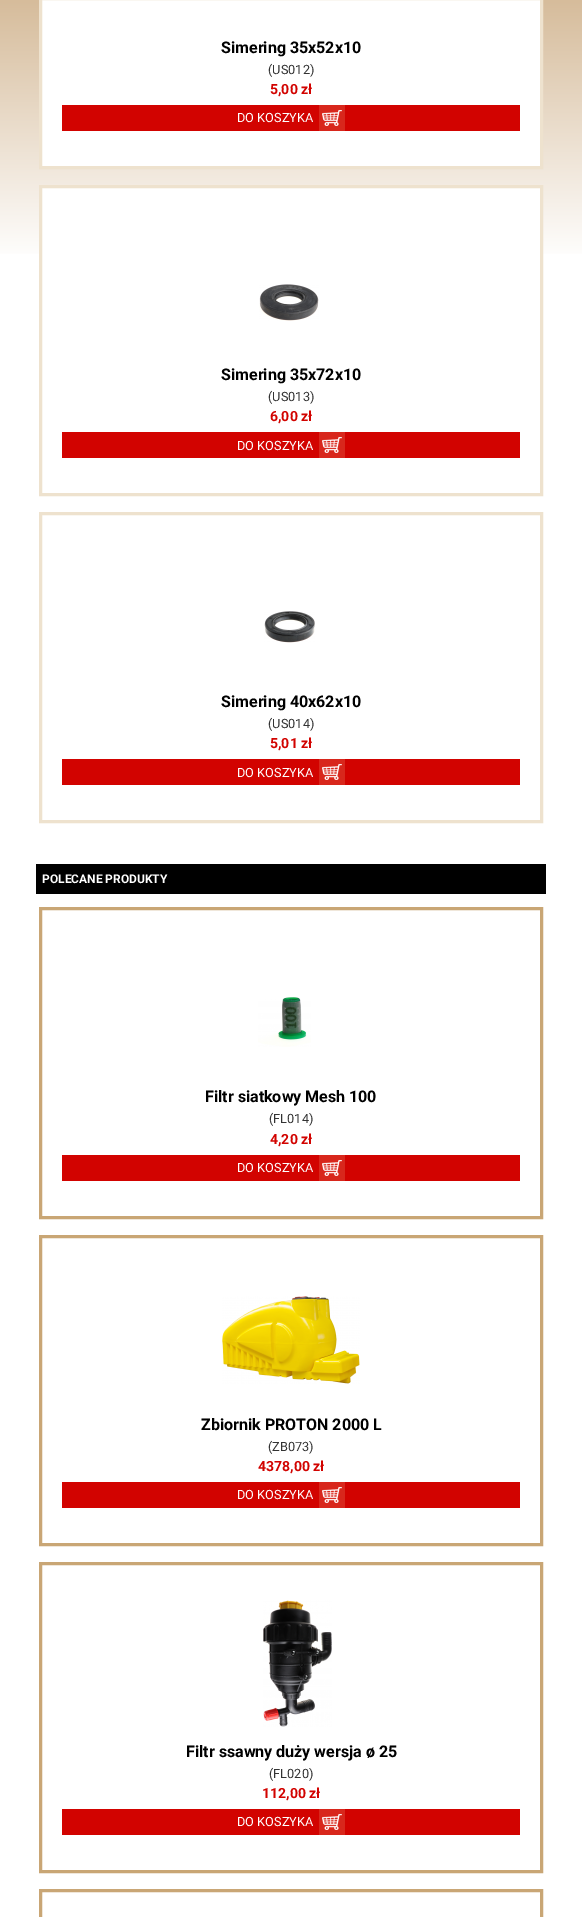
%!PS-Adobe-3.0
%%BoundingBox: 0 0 582 1917
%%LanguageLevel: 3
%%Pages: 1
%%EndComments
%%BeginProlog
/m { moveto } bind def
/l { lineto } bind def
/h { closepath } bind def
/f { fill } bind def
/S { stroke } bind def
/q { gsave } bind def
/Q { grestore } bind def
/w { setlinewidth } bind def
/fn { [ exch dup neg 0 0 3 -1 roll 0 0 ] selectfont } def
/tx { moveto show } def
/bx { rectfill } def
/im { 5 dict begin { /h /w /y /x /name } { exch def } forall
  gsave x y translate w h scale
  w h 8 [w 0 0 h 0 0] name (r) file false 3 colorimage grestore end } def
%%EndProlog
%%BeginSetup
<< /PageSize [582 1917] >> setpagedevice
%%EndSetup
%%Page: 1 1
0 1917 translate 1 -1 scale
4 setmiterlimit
1 setgray
0 0 582 1917 bx
q 0 0 m 582 0 l 582 254 l 0 254 l h clip newpath
<< /ShadingType 2 /ColorSpace /DeviceRGB /Coords [291 -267 291 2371] /Extend [true true] /Function << /FunctionType 3 /Domain [0 1] /Functions [<< /FunctionType 2 /Domain [0 1] /C0 [0.678 0.471 0.208] /C1 [1 1 1] /N 1 >> << /FunctionType 2 /Domain [0 1] /C0 [1 1 1] /C1 [1 1 1] /N 1 >>] /Bounds [0.2] /Encode [0 1 0 1] >> >> shfill Q
40.5 -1.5 m 541.5 -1.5 l 541.5 167.5 l 40.5 167.5 l h q f Q
0.933 0.886 0.808 setrgbcolor
3 w
S
/Roboto-Bold 16 fn
0 setgray
(Simering 35x52x10) 221 53 tx
/Roboto-Regular 12.75 fn
0.2 setgray
(\(US012\)) 268 74 tx
/Roboto-Bold 14 fn
0.824 0.012 0 setrgbcolor
(5,00 zł) 270 94 tx
62 105 458 26 bx
/Roboto-Regular 12.75 fn
1 setgray
(DO KOSZYKA) 237 122 tx
0.847 0.153 0.11 setrgbcolor
319 105 26 26 bx
(image0.raw) 322 110 20 16 im
1 setgray
42 188 498 66 bx
0.933 0.886 0.808 setrgbcolor
40.5 186.5 501 308 rectstroke
(image1.raw) 259 284 60 37 im
/Roboto-Bold 16 fn
0 setgray
(Simering 35x72x10) 221 380 tx
/Roboto-Regular 12.75 fn
0.2 setgray
(\(US013\)) 268 401 tx
/Roboto-Bold 14 fn
0.824 0.012 0 setrgbcolor
(6,00 zł) 270 421 tx
62 432 458 26 bx
/Roboto-Regular 12.75 fn
1 setgray
(DO KOSZYKA) 237 450 tx
0.847 0.153 0.11 setrgbcolor
319 432 26 26 bx
(image0.raw) 322 437 20 16 im
0.933 0.886 0.808 setrgbcolor
40.5 513.5 501 308 rectstroke
(image2.raw) 264 611 51 32 im
/Roboto-Bold 16 fn
0 setgray
(Simering 40x62x10) 221 707 tx
/Roboto-Regular 12.75 fn
0.2 setgray
(\(US014\)) 268 728 tx
/Roboto-Bold 14 fn
0.824 0.012 0 setrgbcolor
(5,01 zł) 270 748 tx
62 759 458 26 bx
/Roboto-Regular 12.75 fn
1 setgray
(DO KOSZYKA) 237 777 tx
0.847 0.153 0.11 setrgbcolor
319 759 26 26 bx
(image0.raw) 322 764 20 16 im
0 setgray
36 864 510 30 bx
/Roboto-Bold 12 fn
1 setgray
(POLECANE PRODUKTY) 42 883 tx
0.788 0.651 0.459 setrgbcolor
40.5 908.5 501 309 rectstroke
(image3.raw) 258 997 53 50 im
/Roboto-Bold 16 fn
0 setgray
(Filtr siatkowy Mesh 100) 205 1102 tx
/Roboto-Regular 12.75 fn
0.2 setgray
(\(FL014\)) 269 1123 tx
/Roboto-Bold 14 fn
0.824 0.012 0 setrgbcolor
(4,20 zł) 270 1144 tx
62 1155 458 26 bx
/Roboto-Regular 12.75 fn
1 setgray
(DO KOSZYKA) 237 1172 tx
0.847 0.153 0.11 setrgbcolor
319 1155 26 26 bx
(image0.raw) 322 1160 20 16 im
0.788 0.651 0.459 setrgbcolor
40.5 1236.5 501 308 rectstroke
(image4.raw) 222 1296 138 88 im
/Roboto-Bold 16 fn
0 setgray
(Zbiornik PROTON 2000 L) 201 1430 tx
/Roboto-Regular 12.75 fn
0.2 setgray
(\(ZB073\)) 268 1451 tx
/Roboto-Bold 14 fn
0.824 0.012 0 setrgbcolor
(4378,00 zł) 258 1471 tx
62 1482 458 26 bx
/Roboto-Regular 12.75 fn
1 setgray
(DO KOSZYKA) 237 1499 tx
0.847 0.153 0.11 setrgbcolor
319 1482 26 26 bx
(image0.raw) 322 1487 20 16 im
0.788 0.651 0.459 setrgbcolor
40.5 1563.5 501 308 rectstroke
(image5.raw) 263 1600 69 127 im
/Roboto-Bold 16 fn
0 setgray
(Filtr ssawny duży wersja ø 25) 186 1757 tx
/Roboto-Regular 12.75 fn
0.2 setgray
(\(FL020\)) 269 1778 tx
/Roboto-Bold 14 fn
0.824 0.012 0 setrgbcolor
(112,00 zł) 262 1798 tx
62 1809 458 26 bx
/Roboto-Regular 12.75 fn
1 setgray
(DO KOSZYKA) 237 1826 tx
0.847 0.153 0.11 setrgbcolor
319 1809 26 26 bx
(image0.raw) 322 1814 20 16 im
0.788 0.651 0.459 setrgbcolor
40.5 1890.5 501 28 rectstroke
showpage
%%EOF
